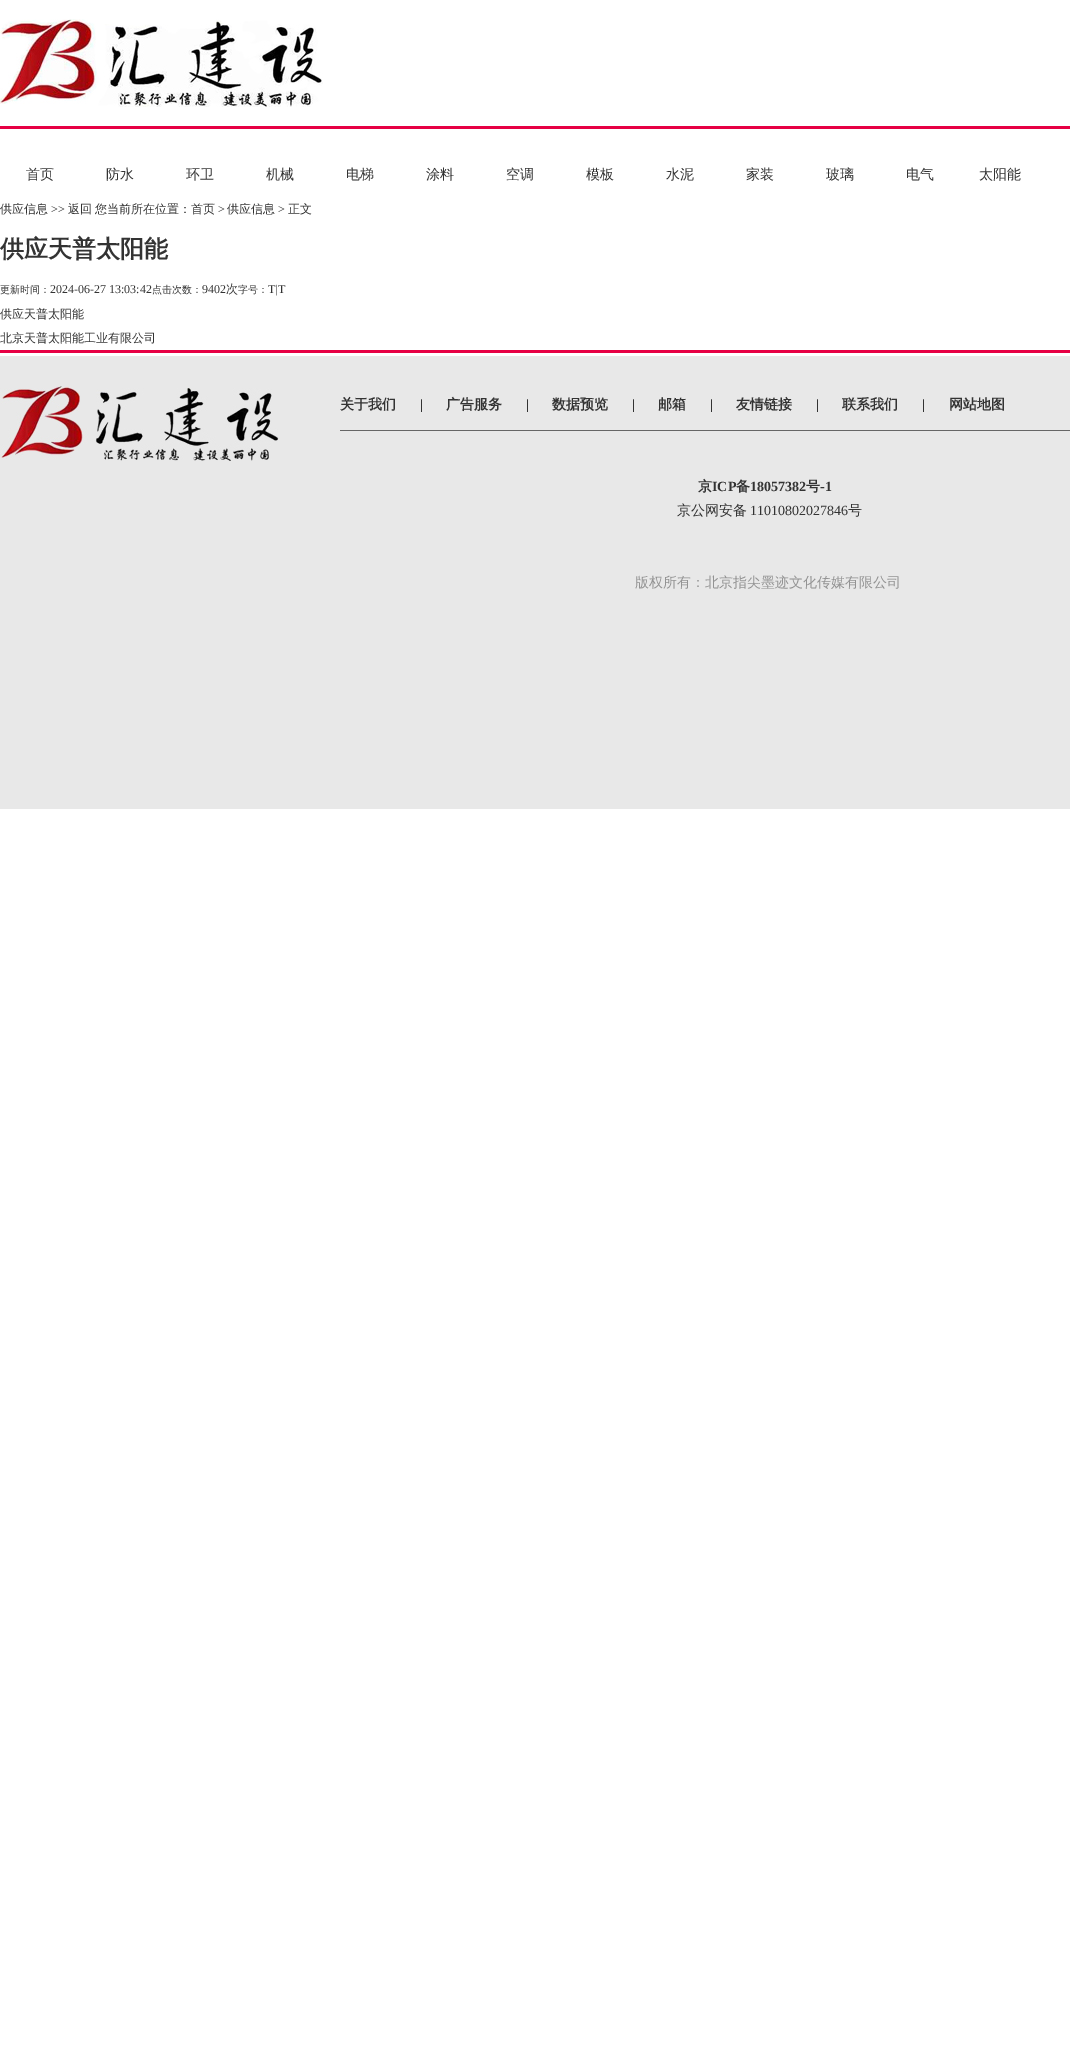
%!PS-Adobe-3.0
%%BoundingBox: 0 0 1070 2067
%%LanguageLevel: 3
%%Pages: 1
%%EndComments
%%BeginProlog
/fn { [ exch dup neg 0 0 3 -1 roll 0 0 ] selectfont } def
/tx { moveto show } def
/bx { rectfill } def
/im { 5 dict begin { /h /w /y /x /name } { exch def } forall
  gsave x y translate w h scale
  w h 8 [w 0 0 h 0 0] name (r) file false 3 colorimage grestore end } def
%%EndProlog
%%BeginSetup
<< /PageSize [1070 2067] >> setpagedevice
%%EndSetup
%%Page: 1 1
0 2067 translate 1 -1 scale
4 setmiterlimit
1 setgray
0 0 1070 2067 bx
(image0.raw) 0 19 323 88 im
0.902 0 0.267 setrgbcolor
0 126 1070 3 bx
/WenQuanYiZenHei-Medium 14 fn
0.2 setgray
(首页) 26 179 tx
(防水) 106 179 tx
(环卫) 186 179 tx
(机械) 266 179 tx
(电梯) 346 179 tx
(涂料) 426 179 tx
(空调) 506 179 tx
(模板) 586 179 tx
(水泥) 666 179 tx
(家装) 746 179 tx
(玻璃) 826 179 tx
(电气) 906 179 tx
(太阳能) 979 179 tx
/WenQuanYiZenHei-Medium 12 fn
(供应信息) 0 213 tx
/LiberationSerif-Regular 12 fn
(>>) 51 213 tx
/WenQuanYiZenHei-Medium 12 fn
(返回) 68 213 tx
(您当前所在位置：首页) 95 213 tx
/LiberationSerif-Regular 12 fn
(>) 218 213 tx
/WenQuanYiZenHei-Medium 12 fn
(供应信息) 227 213 tx
/LiberationSerif-Regular 12 fn
(>) 278 213 tx
/WenQuanYiZenHei-Medium 12 fn
(正文) 288 213 tx
/WenQuanYiZenHei-Bold 24 fn
(供应天普太阳能) 0 257 tx
/WenQuanYiZenHei-Medium 10 fn
(更新时间：) 0 293 tx
/LiberationSerif-Regular 12 fn
(2024-06-27 13:03:42) 50 293 tx
/WenQuanYiZenHei-Medium 10 fn
(点击次数：) 152 293 tx
/LiberationSerif-Regular 12 fn
(9402) 202 293 tx
/WenQuanYiZenHei-Medium 12 fn
(次) 226 293 tx
/WenQuanYiZenHei-Medium 10 fn
(字号：) 238 293 tx
/LiberationSerif-Regular 12 fn
(T|T) 268 293 tx
/WenQuanYiZenHei-Medium 12 fn
(供应天普太阳能) 0 318 tx
(北京天普太阳能工业有限公司) 0 342 tx
0.91 setgray
0 356 1070 453 bx
(image1.raw) 0 350 1070 6 im
(image2.raw) 0 386 279 75 im
0.4 setgray
340 430 730 1 bx
/WenQuanYiZenHei-Bold 14 fn
0.2 setgray
(关于我们) 340 409 tx
/LiberationSerif-Bold 14 fn
(|) 420 409 tx
/WenQuanYiZenHei-Bold 14 fn
(广告服务) 446 409 tx
/LiberationSerif-Bold 14 fn
(|) 526 409 tx
/WenQuanYiZenHei-Bold 14 fn
(数据预览) 552 409 tx
/LiberationSerif-Bold 14 fn
(|) 632 409 tx
/WenQuanYiZenHei-Bold 14 fn
(邮箱) 658 409 tx
/LiberationSerif-Bold 14 fn
(|) 710 409 tx
/WenQuanYiZenHei-Bold 14 fn
(友情链接) 736 409 tx
/LiberationSerif-Bold 14 fn
(|) 816 409 tx
/WenQuanYiZenHei-Bold 14 fn
(联系我们) 842 409 tx
/LiberationSerif-Bold 14 fn
(|) 922 409 tx
/WenQuanYiZenHei-Bold 14 fn
(网站地图) 949 409 tx
(京) 698 491 tx
/LiberationSerif-Bold 14 fn
(ICP) 712 491 tx
/WenQuanYiZenHei-Bold 14 fn
(备) 736 491 tx
/LiberationSerif-Bold 14 fn
(18057382) 750 491 tx
/WenQuanYiZenHei-Bold 14 fn
(号) 806 491 tx
/LiberationSerif-Bold 14 fn
(-1) 820 491 tx
/WenQuanYiZenHei-Medium 14 fn
(京公网安备) 677 515 tx
/LiberationSerif-Regular 14 fn
(11010802027846) 750 515 tx
/WenQuanYiZenHei-Medium 14 fn
(号) 848 515 tx
0.576 setgray
(版权所有：北京指尖墨迹文化传媒有限公司) 635 587 tx
showpage
%%EOF
